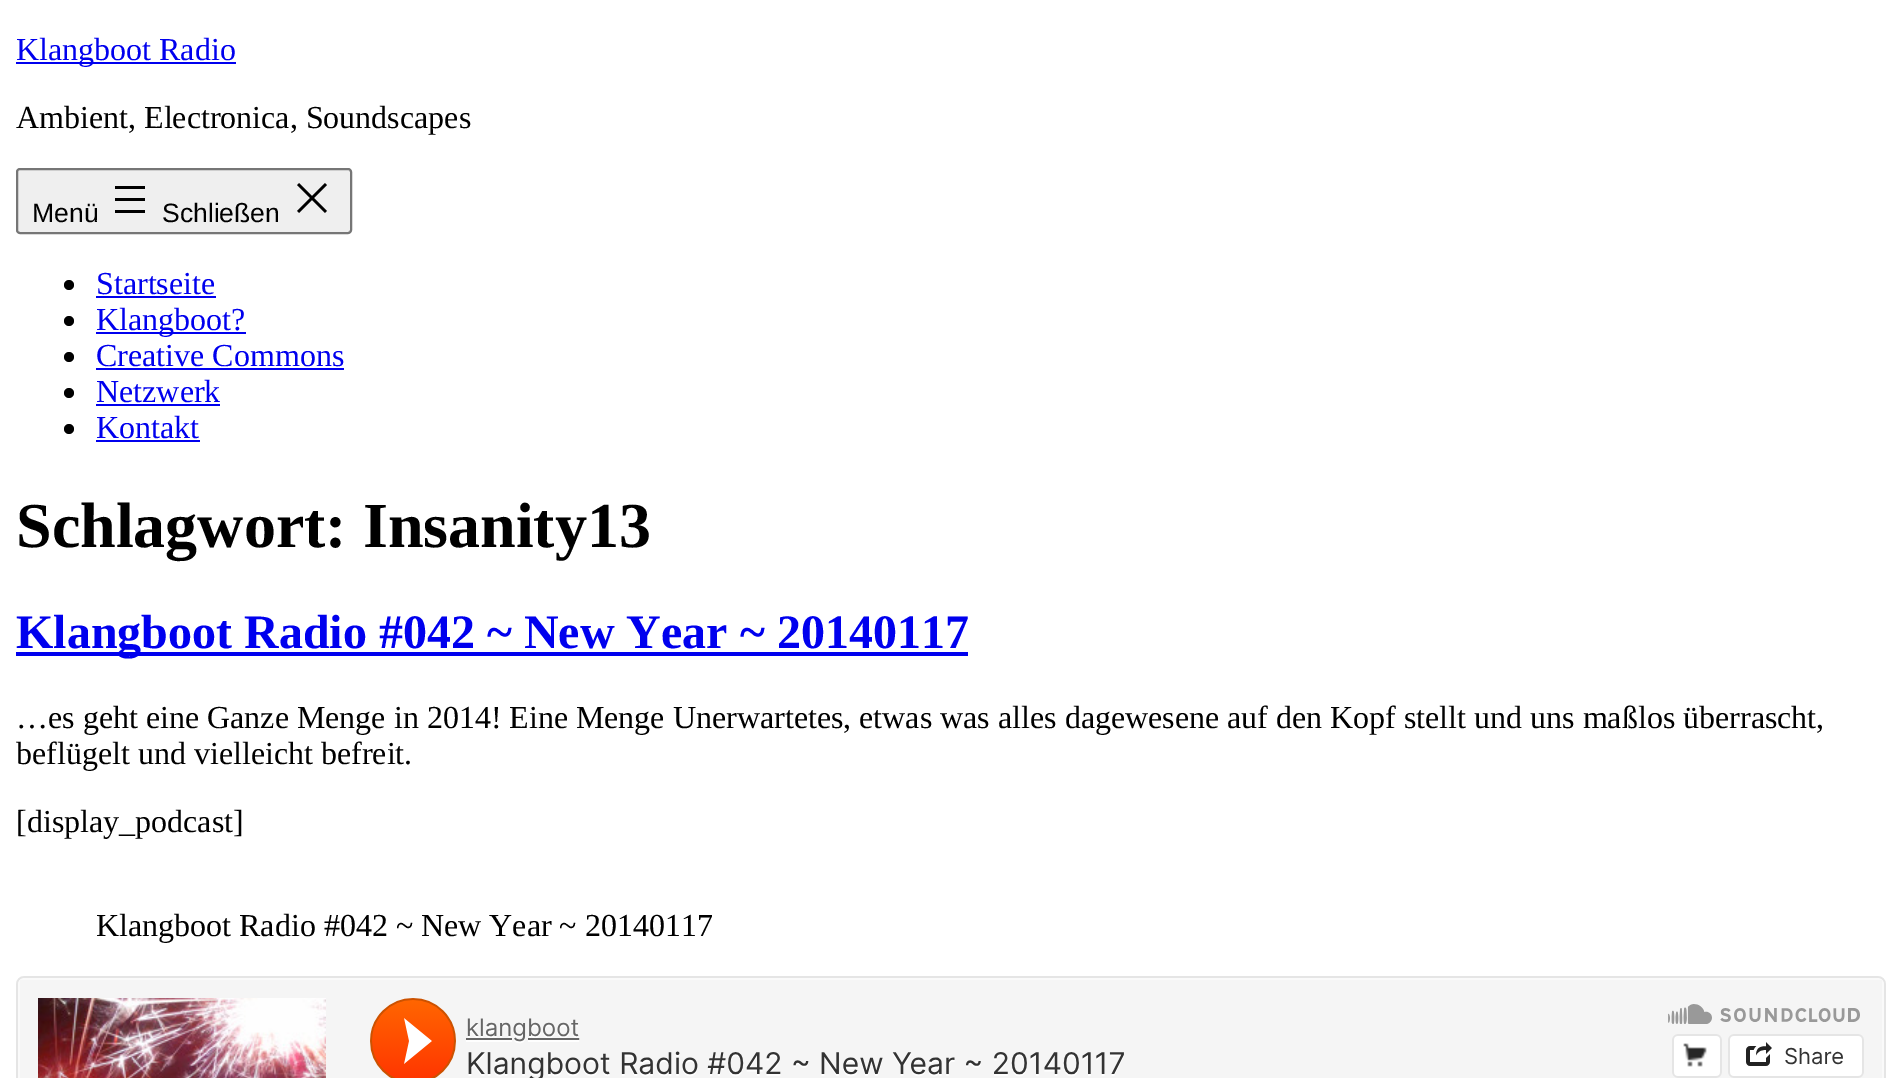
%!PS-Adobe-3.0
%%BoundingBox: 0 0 1902 1078
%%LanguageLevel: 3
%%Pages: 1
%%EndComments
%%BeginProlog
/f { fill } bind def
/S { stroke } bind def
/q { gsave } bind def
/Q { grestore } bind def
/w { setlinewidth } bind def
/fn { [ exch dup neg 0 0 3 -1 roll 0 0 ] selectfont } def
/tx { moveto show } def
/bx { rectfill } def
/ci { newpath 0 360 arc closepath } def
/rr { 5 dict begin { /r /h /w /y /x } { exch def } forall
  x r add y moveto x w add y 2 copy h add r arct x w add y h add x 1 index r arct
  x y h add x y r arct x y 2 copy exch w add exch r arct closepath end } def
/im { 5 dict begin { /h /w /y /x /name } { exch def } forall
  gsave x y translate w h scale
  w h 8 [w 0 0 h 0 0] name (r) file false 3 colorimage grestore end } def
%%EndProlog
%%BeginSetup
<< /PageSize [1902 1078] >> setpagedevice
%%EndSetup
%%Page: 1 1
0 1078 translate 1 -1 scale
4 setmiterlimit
1 setgray
0 0 1902 1078 bx
0 0 0.933 setrgbcolor
16 62 220 2 bx
/LiberationSerif-Regular 32 fn
(Klangboot Radio) 16 60 tx
0 setgray
(Ambient, Electronica, Soundscapes) 16 128 tx
0.937 setgray
17 169 334 64 3 rr q f Q
0.463 setgray
2 w
S
/LiberationSans-Regular 26.5 fn
0 setgray
(Menü) 32 222 tx
(image0.raw) 115 186 30 27 im
(Schließen) 162 222 tx
(image1.raw) 297 183 30 30 im
69 285 5 ci f
/LiberationSerif-Regular 32 fn
0 0 0.933 setrgbcolor
(Startseite) 96 294 tx
96 296 120 2 bx
0 setgray
69 321 5 ci f
0 0 0.933 setrgbcolor
96 332 150 2 bx
(Klangboot?) 96 330 tx
0 setgray
69 357 5 ci f
0 0 0.933 setrgbcolor
(Creative Commons) 96 366 tx
96 368 248 2 bx
0 setgray
69 393 5 ci f
0 0 0.933 setrgbcolor
(Netzwerk) 96 402 tx
96 404 124 2 bx
0 setgray
69 429 5 ci f
0 0 0.933 setrgbcolor
(Kontakt) 96 438 tx
96 440 104 2 bx
/LiberationSerif-Bold 64 fn
0 setgray
(Schlagwort: Insanity13) 16 547 tx
0 0 0.933 setrgbcolor
16 652 952 4 bx
/LiberationSerif-Bold 48 fn
(Klangboot Radio #042 ~ New Year ~ 20140117) 16 648 tx
/LiberationSerif-Regular 32 fn
0 setgray
(…es geht eine Ganze Menge in 2014! Eine Menge Unerwartetes, etwas was alles dagewesene auf den Kopf stellt und uns maßlos überrascht,) 16 728 tx
(beflügelt und vielleicht befreit.) 16 764 tx
([display_podcast]) 16 832 tx
(Klangboot Radio #042 ~ New Year ~ 20140117) 96 936 tx
(image2.raw) 16 976 1870 102 im
showpage
%%EOF
